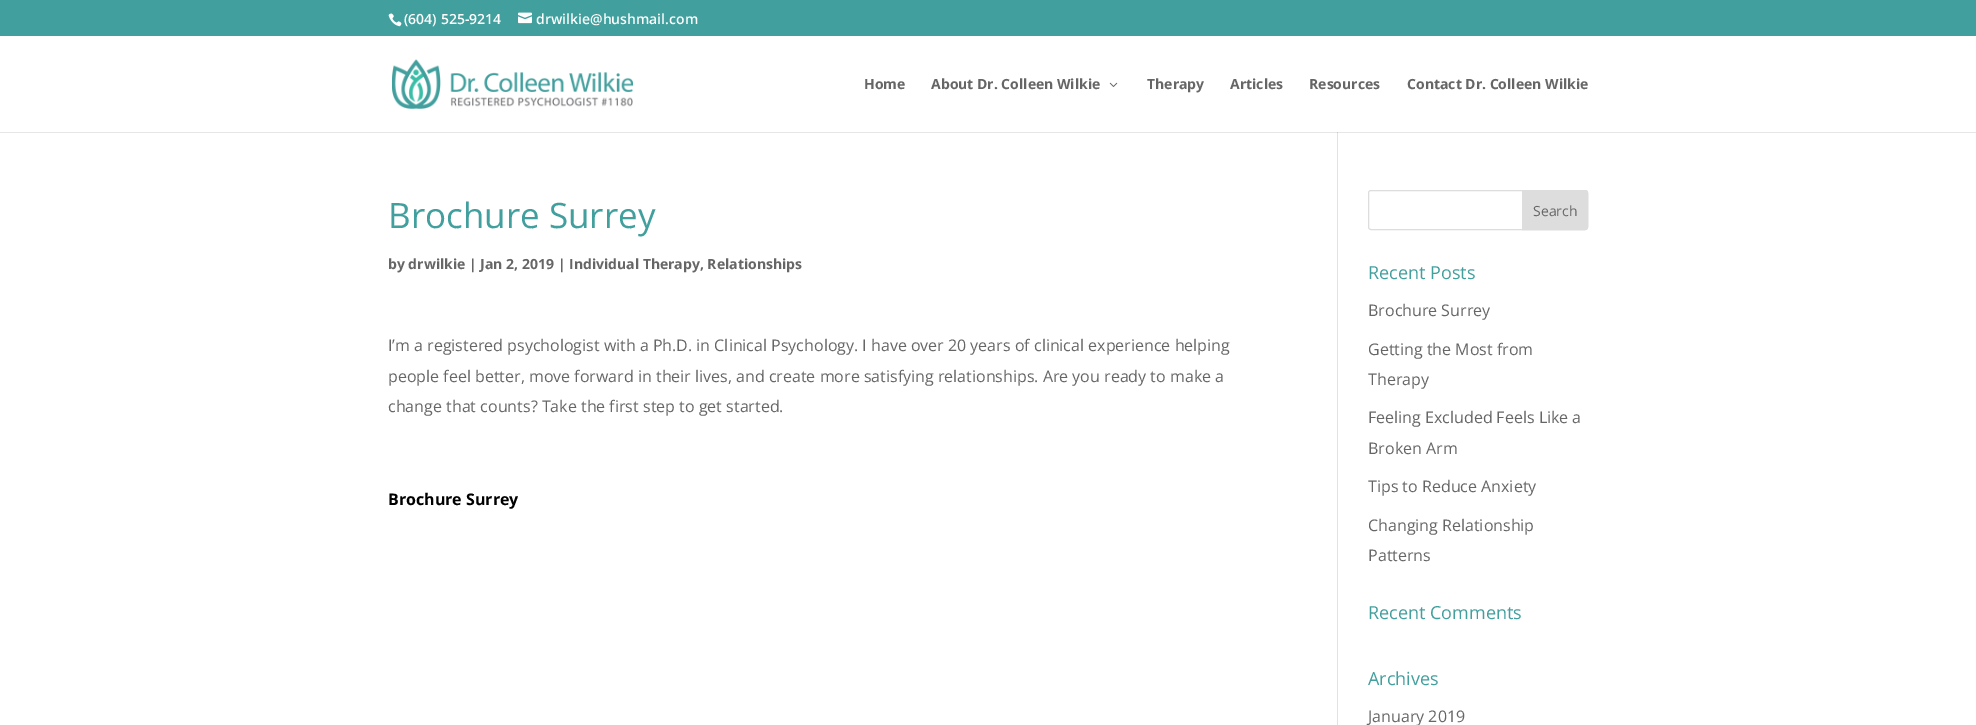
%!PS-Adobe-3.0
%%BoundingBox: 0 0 1976 725
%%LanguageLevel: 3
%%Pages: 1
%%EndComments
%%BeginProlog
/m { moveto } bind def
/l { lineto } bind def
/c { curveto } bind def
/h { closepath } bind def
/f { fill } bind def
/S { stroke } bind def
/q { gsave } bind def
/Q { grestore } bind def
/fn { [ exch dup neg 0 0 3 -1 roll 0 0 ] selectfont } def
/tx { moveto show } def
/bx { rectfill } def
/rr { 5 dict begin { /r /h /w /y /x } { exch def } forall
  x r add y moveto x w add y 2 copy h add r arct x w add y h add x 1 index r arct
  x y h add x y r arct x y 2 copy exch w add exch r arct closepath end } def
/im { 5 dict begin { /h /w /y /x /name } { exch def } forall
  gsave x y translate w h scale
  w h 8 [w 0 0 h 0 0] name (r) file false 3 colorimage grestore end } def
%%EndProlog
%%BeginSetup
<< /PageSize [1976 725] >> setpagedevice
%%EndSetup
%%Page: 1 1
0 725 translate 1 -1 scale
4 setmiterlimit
1 setgray
0 0 1976 725 bx
0.902 setgray
0 132 1976 1 bx
0.255 0.624 0.616 setrgbcolor
0 0 1976 36 bx
(image0.raw) 388 13 14 14 im
/OpenSans-SemiBold 14 fn
1 setgray
(\(604\) 525-9214) 404 24 tx
(image1.raw) 518 12 14 12 im
(drwilkie@hushmail.com) 536 24 tx
(image2.raw) 392 59 241 50 im
/OpenSans-Bold 14 fn
0.4 setgray
(Home) 864 89 tx
(About Dr. Colleen Wilkie) 931 89 tx
(image3.raw) 1109 82 9 5 im
(Therapy) 1147 89 tx
(Articles) 1230 89 tx
(Resources) 1309 89 tx
(Contact Dr. Colleen Wilkie) 1407 89 tx
0.886 setgray
1337 132 1 593 bx
0.796 setgray
1337 132 1 1 bx
/OpenSans-Regular 35 fn
0.255 0.624 0.616 setrgbcolor
(Brochure Surrey) 388 228 tx
/OpenSans-Bold 14 fn
0.4 setgray
(by drwilkie | Jan 2, 2019 | Individual Therapy, Relationships) 388 269 tx
/OpenSans-Regular 16 fn
(I’m a registered psychologist with a Ph.D. in Clinical Psychology. I have over 20 years of clinical experience helping) 388 351 tx
(people feel better, move forward in their lives, and create more satisfying relationships. Are you ready to make a) 388 382 tx
(change that counts? Take the first step to get started.) 388 412 tx
/OpenSans-Bold 16 fn
0 setgray
(Brochure Surrey) 388 505 tx
0.867 setgray
1368.5 190.5 219 39 2.5 rr S
1522.5 190.5 m 1585 190.5 l 1586.5 190.5 1587.5 191.5 1587.5 193 c 1587.5 227 l 1587.5 228.5 1586.5 229.5 1585 229.5 c 1522.5 229.5 l h q f Q
S
/OpenSans-Regular 14 fn
0.4 setgray
(Search) 1533 216 tx
/OpenSans-Regular 18 fn
0.255 0.624 0.616 setrgbcolor
(Recent Posts) 1368 279 tx
/OpenSans-Regular 16 fn
0.4 setgray
(Brochure Surrey) 1368 316 tx
(Getting the Most from) 1368 355 tx
(Therapy) 1368 385 tx
(Feeling Excluded Feels Like a) 1368 423 tx
(Broken Arm) 1368 454 tx
(Tips to Reduce Anxiety) 1368 492 tx
(Changing Relationship) 1368 531 tx
(Patterns) 1368 561 tx
/OpenSans-Regular 18 fn
0.255 0.624 0.616 setrgbcolor
(Recent Comments) 1368 619 tx
(Archives) 1368 685 tx
/OpenSans-Regular 16 fn
0.4 setgray
(January 2019) 1368 722 tx
showpage
%%EOF
